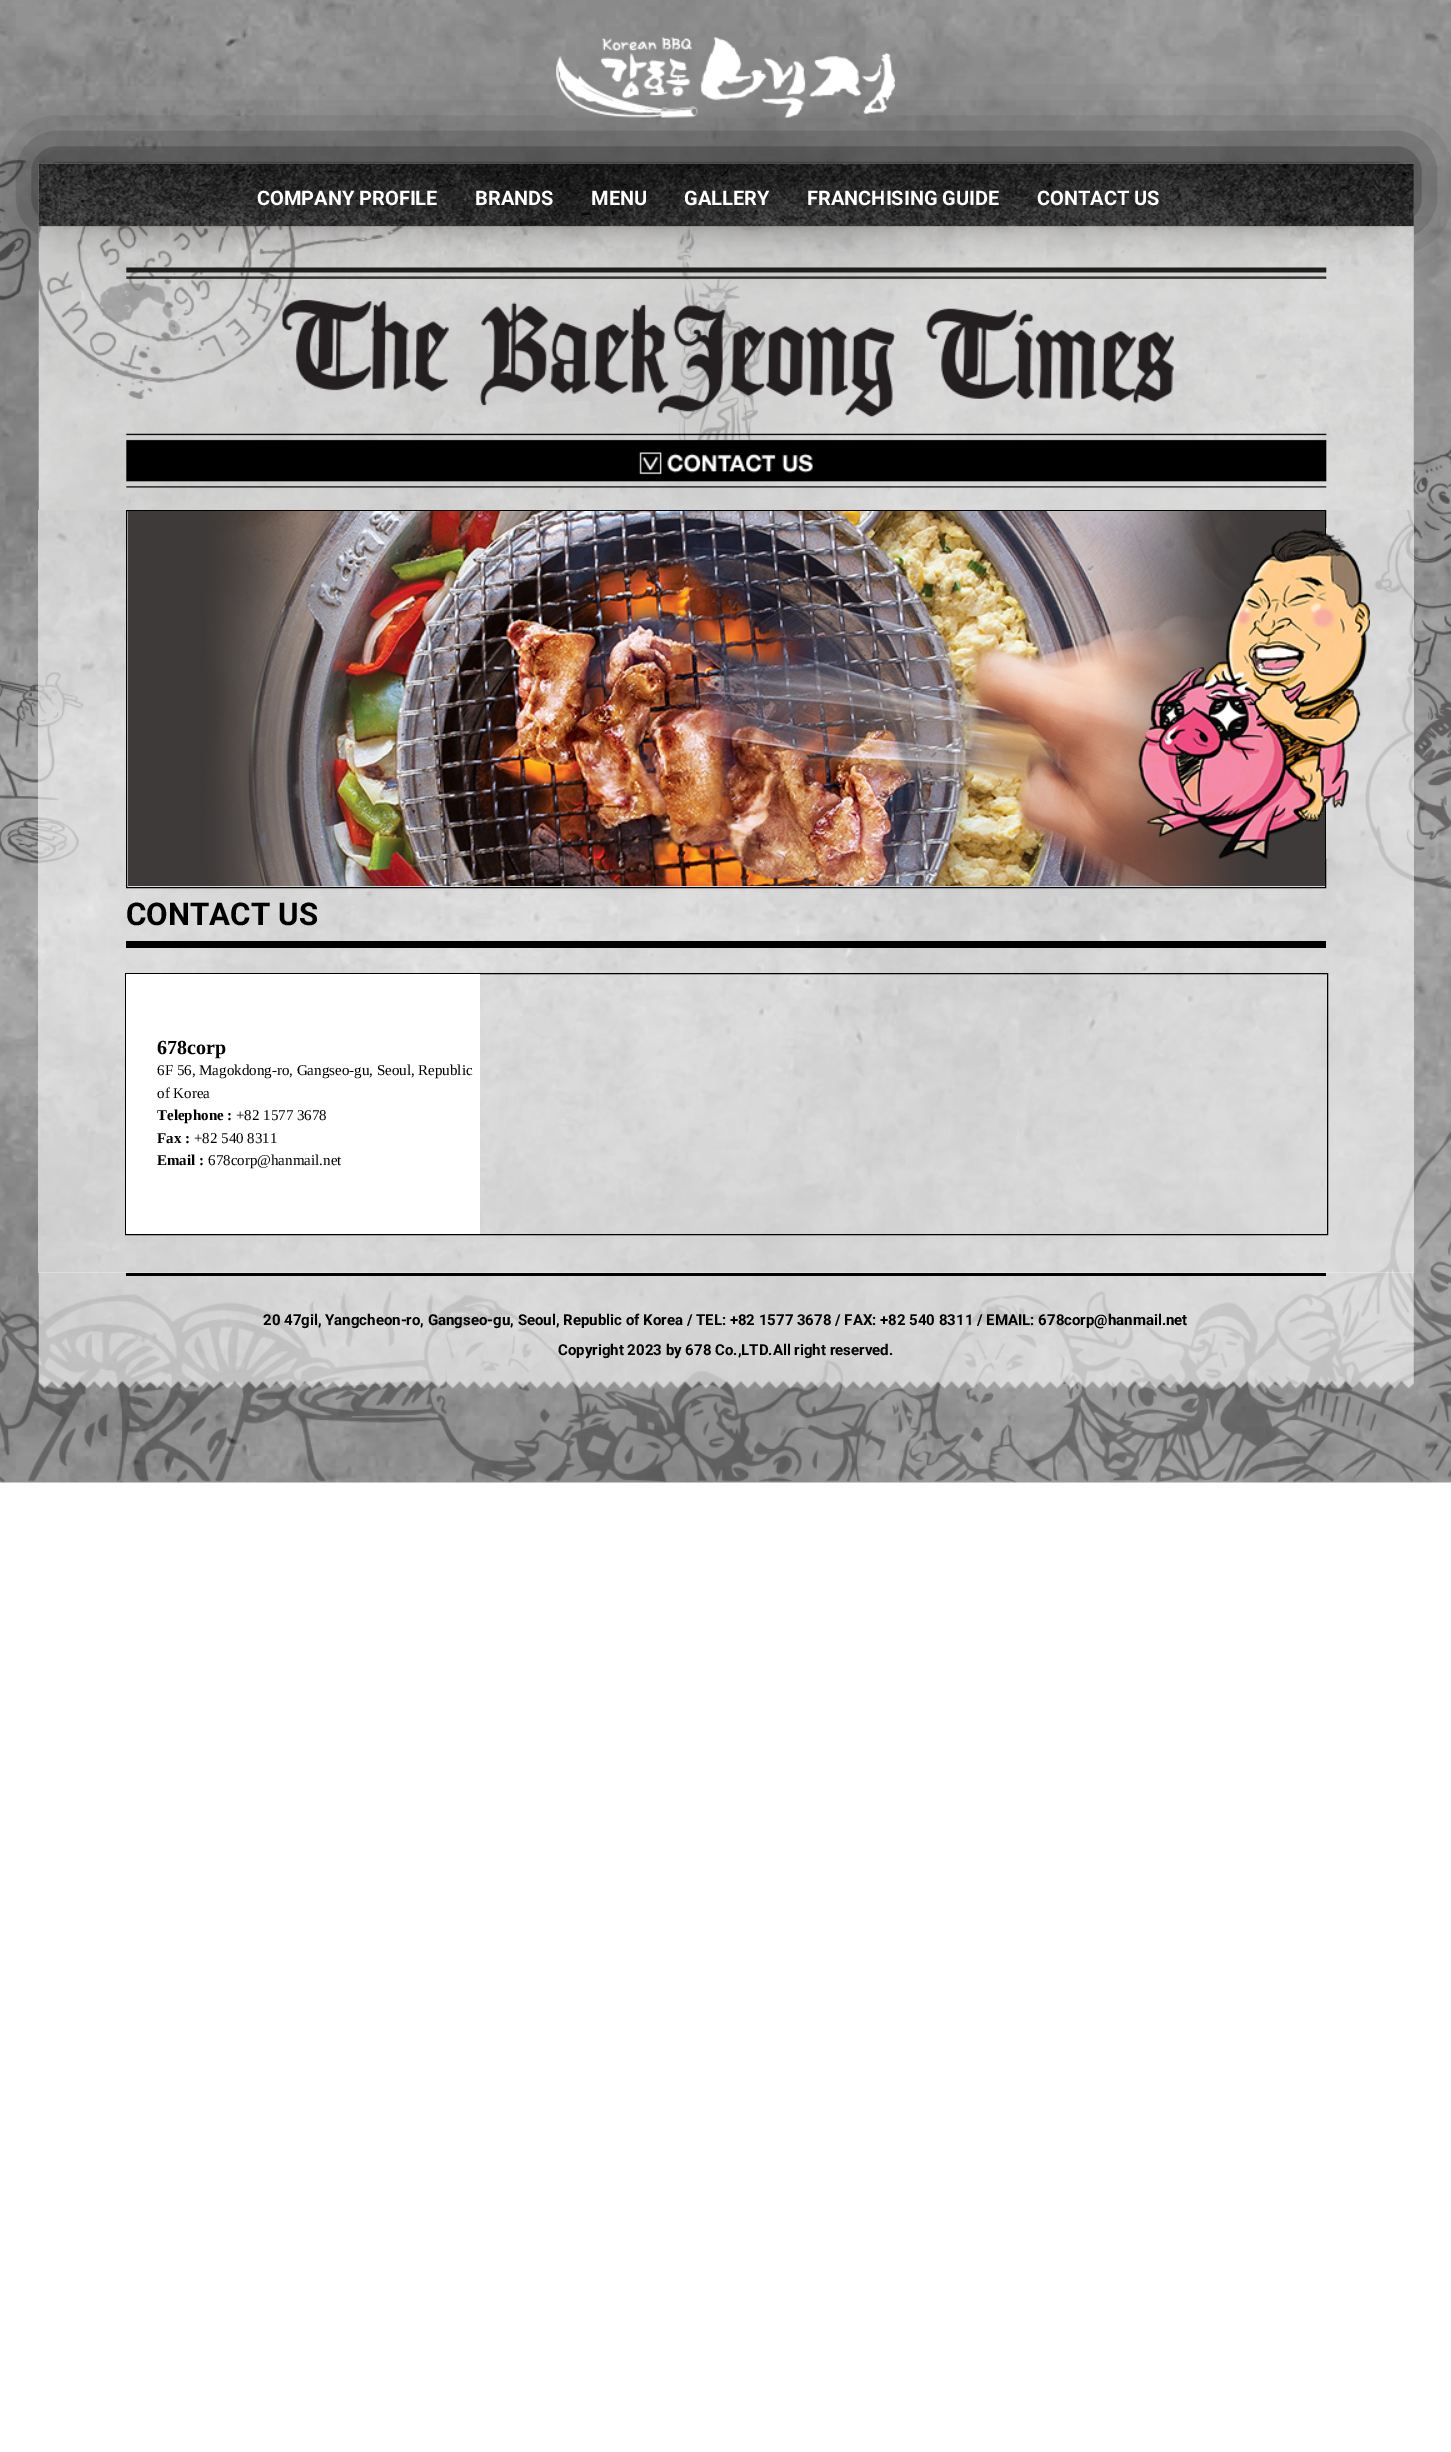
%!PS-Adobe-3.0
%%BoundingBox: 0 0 1451 2452
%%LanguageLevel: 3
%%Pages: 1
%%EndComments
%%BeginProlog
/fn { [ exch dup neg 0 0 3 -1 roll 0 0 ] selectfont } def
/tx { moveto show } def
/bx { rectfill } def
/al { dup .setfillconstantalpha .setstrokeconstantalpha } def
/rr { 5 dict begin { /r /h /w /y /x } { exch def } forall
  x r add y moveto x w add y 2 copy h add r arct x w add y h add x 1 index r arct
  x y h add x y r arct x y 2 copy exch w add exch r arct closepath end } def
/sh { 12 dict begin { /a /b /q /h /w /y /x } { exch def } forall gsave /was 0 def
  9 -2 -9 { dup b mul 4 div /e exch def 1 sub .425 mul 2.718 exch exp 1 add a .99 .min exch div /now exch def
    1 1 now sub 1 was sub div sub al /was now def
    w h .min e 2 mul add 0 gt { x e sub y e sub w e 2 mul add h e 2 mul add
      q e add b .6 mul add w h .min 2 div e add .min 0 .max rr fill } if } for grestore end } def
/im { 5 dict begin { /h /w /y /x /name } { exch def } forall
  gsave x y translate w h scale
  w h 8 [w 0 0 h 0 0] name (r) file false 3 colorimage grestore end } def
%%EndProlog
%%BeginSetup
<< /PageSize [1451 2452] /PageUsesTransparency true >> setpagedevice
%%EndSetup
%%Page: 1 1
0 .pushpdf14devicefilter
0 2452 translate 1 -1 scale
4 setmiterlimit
1 setgray
0 0 1451 2452 bx
(image0.raw) 0 0 1451 1483 im
(image1.raw) 0 159 1451 518 im
(image2.raw) 0 671 1451 218 im
(image3.raw) 0 1131 1451 352 im
0.141 setgray
39 154 1375 62 0 31 1 sh
(image4.raw) 556 37 339 81 im
(image5.raw) 38 163 1376 64 im
/Roboto-Bold 20 fn
1 setgray
(COMPANY PROFILE) 257 205 tx
(BRANDS) 475 205 tx
(MENU) 591 205 tx
(GALLERY) 684 205 tx
(FRANCHISING GUIDE) 807 205 tx
(CONTACT US) 1037 205 tx
(image6.raw) 38 226 1376 284 im
(image7.raw) 638 452 175 23 im
(image10.raw) 38 1272 1376 117 im
0.6 al
38 510 1376 763 bx
1 al
0 setgray
126.5 510.5 1199 377 rectstroke
(image8.raw) 128 511 1197 375 im
(image9.raw) 1138 528 232 331 im
126 941 1200 7 bx
/Roboto-Bold 31.25 fn
(CONTACT US) 126 925 tx
125.5 973.5 1202 261 rectstroke
1 setgray
126 974 354 260 bx
/LiberationSerif-Bold 20 fn
0 setgray
(678corp) 157 1054 tx
/LiberationSerif-Regular 15 fn
(6F 56, Magokdong-ro, Gangseo-gu, Seoul, Republic) 157 1075 tx
(of Korea) 157 1098 tx
/LiberationSerif-Bold 15 fn
(Telephone :) 157 1120 tx
/LiberationSerif-Regular 15 fn
(+82 1577 3678) 236 1120 tx
/LiberationSerif-Bold 15 fn
(Fax :) 157 1143 tx
/LiberationSerif-Regular 15 fn
(+82 540 8311) 194 1143 tx
/LiberationSerif-Bold 15 fn
(Email :) 157 1165 tx
/LiberationSerif-Regular 15 fn
(678corp@hanmail.net) 208 1165 tx
126 1273 1200 3 bx
/Roboto-Bold 15 fn
(20 47gil, Yangcheon-ro, Gangseo-gu, Seoul, Republic of Korea / TEL: +82 1577 3678 / FAX: +82 540 8311 / EMAIL: 678corp@hanmail.net) 263 1325 tx
(Copyright 2023 by 678 Co.,LTD.All right reserved.) 558 1355 tx
.poppdf14devicefilter showpage
%%EOF
